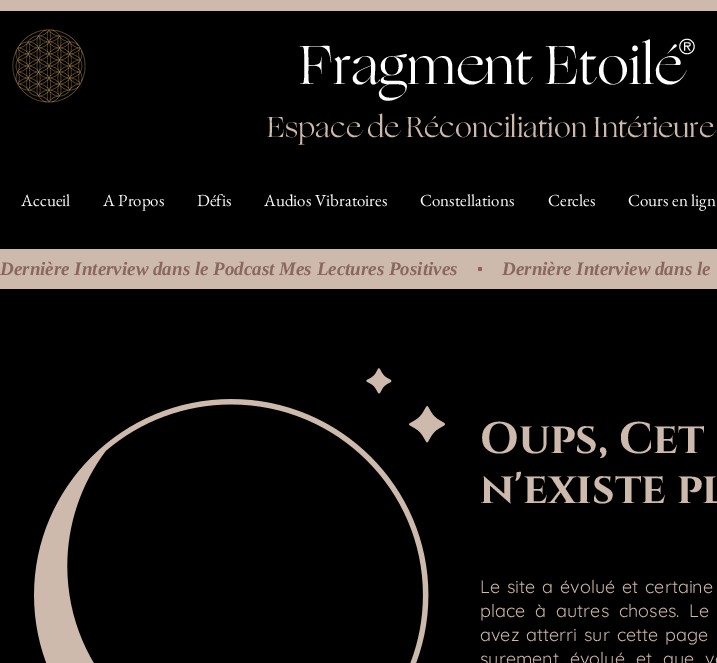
%!PS-Adobe-3.0
%%BoundingBox: 0 0 717 663
%%LanguageLevel: 3
%%Pages: 1
%%EndComments
%%BeginProlog
/m { moveto } bind def
/fn { [ exch dup neg 0 0 3 -1 roll 0 0 ] selectfont } def
/tx { moveto show } def
/bx { rectfill } def
/im { 5 dict begin { /h /w /y /x /name } { exch def } forall
  gsave x y translate w h scale
  w h 8 [w 0 0 h 0 0] name (r) file false 3 colorimage grestore end } def
%%EndProlog
%%BeginSetup
<< /PageSize [717 663] >> setpagedevice
%%EndSetup
%%Page: 1 1
0 663 translate 1 -1 scale
4 setmiterlimit
0 setgray
0 0 717 663 bx
0.808 0.725 0.678 setrgbcolor
0 0 717 289 bx
0 setgray
0 11 717 238 bx
(image0.raw) 12 29 74 74 im
/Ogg-Regular 55 fn
1 setgray
(Fragment Etoilé) 299 84 tx
/futura-Regular 20 fn
(®) 679 54 tx
/Ogg-Regular 29 fn
0.808 0.725 0.678 setrgbcolor
(Espace de Réconciliation Intérieure) 267 137 tx
/EBGaramond-Regular 17 fn
1 setgray
(Accueil) 21 206 tx
(A Propos) 103 206 tx
(Défis) 197 206 tx
(Audios Vibratoires) 264 206 tx
(Constellations) 420 206 tx
(Cercles) 548 206 tx
(Cours en lign) 628 206 tx
/LiberationSerif-BoldItalic 19 fn
0.533 0.408 0.369 setrgbcolor
(Dernière Interview dans le Podcast Mes Lectures Positives) 0 275 tx
478 267 4 4 bx
(Dernière Interview dans le) 502 275 tx
(image1.raw) 34 368 411 295 im
/Cinzel-Bold 44 fn
0.808 0.725 0.678 setrgbcolor
(Oups, Cet) 480 453 tx
(n'existe pl) 480 503 tx
/Quicksand-Regular 18 fn
480 593 m 2 0 32 (Le site a évolué et certaine) widthshow
480 617 m 5 0 32 (place à autres choses. Le) widthshow
480 641 m 2 0 32 (avez atterri sur cette page) widthshow
480 665 m 6 0 32 (surement évolué et que vo) widthshow
showpage
%%EOF
